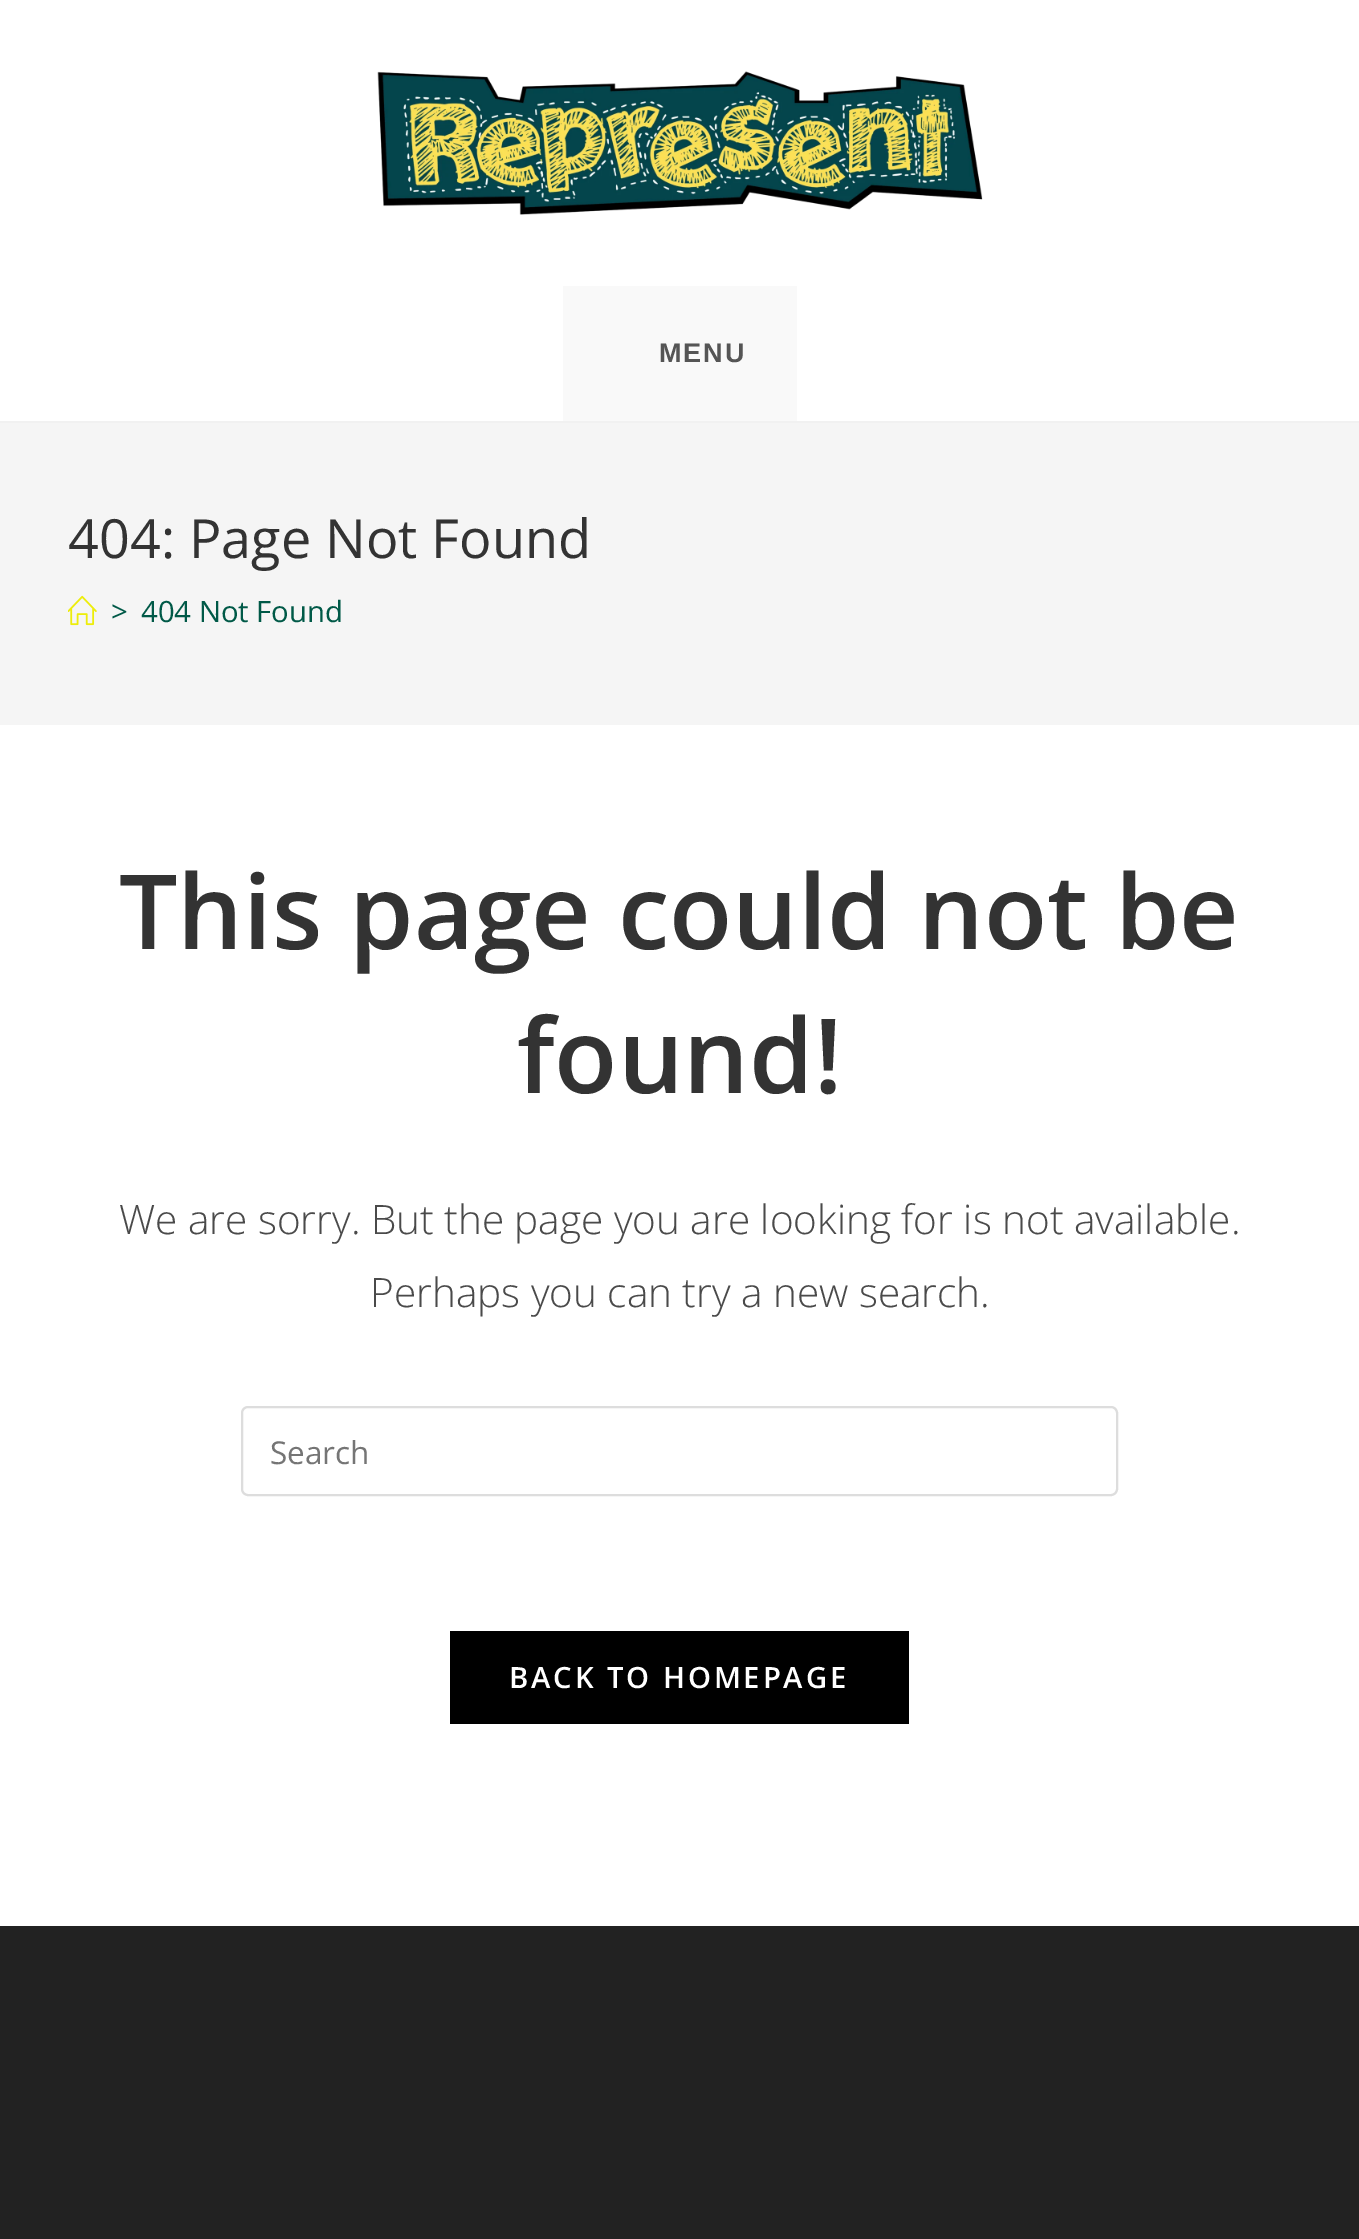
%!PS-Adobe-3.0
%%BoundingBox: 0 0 1359 2239
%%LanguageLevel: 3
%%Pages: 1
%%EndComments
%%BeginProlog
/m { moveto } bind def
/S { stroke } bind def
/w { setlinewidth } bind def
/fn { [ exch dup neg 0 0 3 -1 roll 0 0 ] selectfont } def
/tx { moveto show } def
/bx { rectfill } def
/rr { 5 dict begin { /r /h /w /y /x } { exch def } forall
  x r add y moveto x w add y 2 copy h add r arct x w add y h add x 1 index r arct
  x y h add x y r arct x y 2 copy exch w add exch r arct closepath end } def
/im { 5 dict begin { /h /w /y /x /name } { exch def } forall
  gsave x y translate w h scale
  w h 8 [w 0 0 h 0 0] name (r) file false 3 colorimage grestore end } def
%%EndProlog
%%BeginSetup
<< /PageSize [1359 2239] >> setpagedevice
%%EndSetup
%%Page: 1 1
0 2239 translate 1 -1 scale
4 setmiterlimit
1 setgray
0 0 1359 2239 bx
0.945 setgray
0 421 1359 2 bx
(image0.raw) 377 71 606 144 im
0.976 setgray
563 286 234 135 bx
/LiberationSans-Bold 27 fn
0.333 setgray
659 362 m 2 0 (MENU) ashow
0.961 setgray
0 423 1359 302 bx
/OpenSans-Regular 54 fn
0.2 setgray
(404: Page Not Found) 68 558 tx
(image1.raw) 68 595 29 31 im
/OpenSans-Regular 29.25 fn
0 0.349 0.278 setrgbcolor
(>) 111 622 tx
(404 Not Found) 141 622 tx
/OpenSans-SemiBold 103.5 fn
0.2 setgray
(This page could not be) 119 949 tx
(found!) 517 1093 tx
/OpenSans-Light 40.5 fn
0.29 setgray
(We are sorry. But the page you are looking for is not available.) 119 1234 tx
(Perhaps you can try a new search.) 370 1307 tx
0.867 setgray
2 w
242 1407 875 88 6 rr S
/OpenSans-Regular 31.5 fn
0.459 setgray
(Search) 270 1464 tx
0 setgray
450 1631 459 93 bx
/OpenSans-SemiBold 29.25 fn
1 setgray
509 1688 m 2.9 0 (BACK TO HOMEPAGE) ashow
0.133 setgray
0 1926 1359 313 bx
showpage
%%EOF
